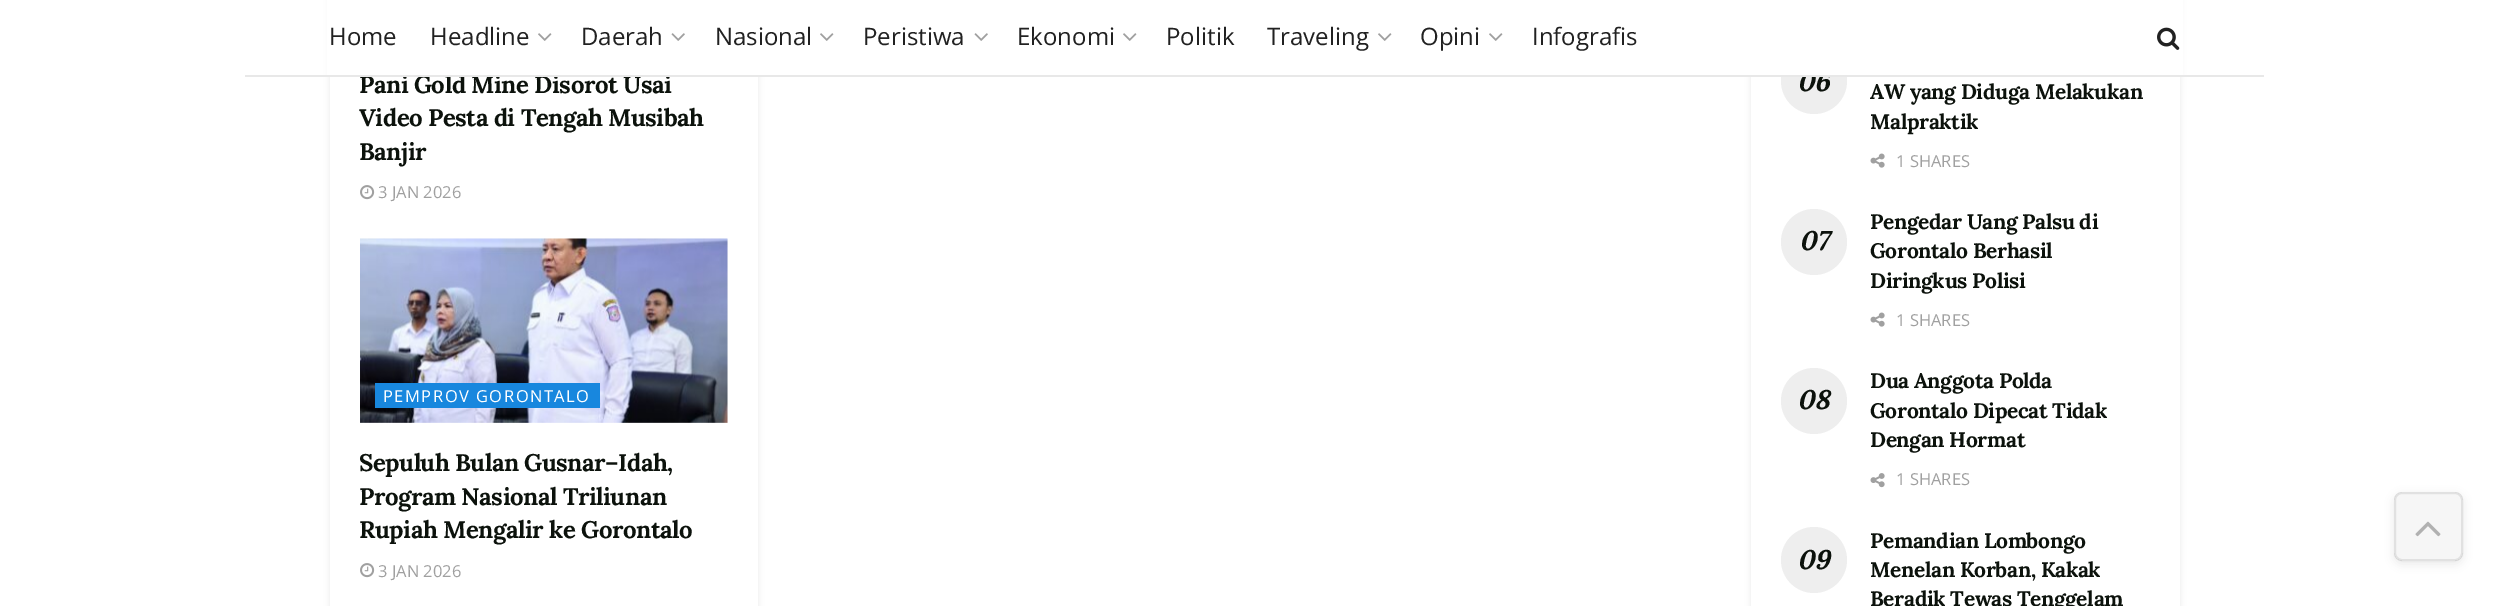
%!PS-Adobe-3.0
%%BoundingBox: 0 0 2507 606
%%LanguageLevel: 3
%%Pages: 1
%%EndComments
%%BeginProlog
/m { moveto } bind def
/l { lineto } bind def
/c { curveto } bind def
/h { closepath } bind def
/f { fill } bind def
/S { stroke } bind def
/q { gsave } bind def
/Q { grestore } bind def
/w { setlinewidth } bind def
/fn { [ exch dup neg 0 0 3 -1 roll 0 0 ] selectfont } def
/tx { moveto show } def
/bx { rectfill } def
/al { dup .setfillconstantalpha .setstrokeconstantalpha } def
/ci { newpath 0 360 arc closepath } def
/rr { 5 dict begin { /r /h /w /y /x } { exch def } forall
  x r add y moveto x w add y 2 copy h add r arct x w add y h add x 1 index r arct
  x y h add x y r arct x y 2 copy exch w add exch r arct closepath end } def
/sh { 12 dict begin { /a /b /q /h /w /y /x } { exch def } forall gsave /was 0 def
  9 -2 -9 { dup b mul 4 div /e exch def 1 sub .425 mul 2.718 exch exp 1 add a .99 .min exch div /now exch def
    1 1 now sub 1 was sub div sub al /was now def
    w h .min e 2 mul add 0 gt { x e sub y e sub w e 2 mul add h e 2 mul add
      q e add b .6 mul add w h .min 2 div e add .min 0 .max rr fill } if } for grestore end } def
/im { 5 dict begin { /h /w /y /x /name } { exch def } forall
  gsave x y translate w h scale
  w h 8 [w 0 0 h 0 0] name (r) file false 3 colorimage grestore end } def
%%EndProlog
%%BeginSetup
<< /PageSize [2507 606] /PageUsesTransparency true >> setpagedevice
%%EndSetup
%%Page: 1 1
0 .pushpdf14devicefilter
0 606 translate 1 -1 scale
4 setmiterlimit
1 setgray
0 0 2507 606 bx
0 setgray
330 -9 428 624 0 3 0.08 sh
1 setgray
330 77 428 529 bx
/Lora-Bold 24 fn
0.047 0.071 0.047 setrgbcolor
359 93 m -0.5 0 (Pani Gold Mine Disorot Usai) ashow
0 setgray
1751 -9 429 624 0 3 0.08 sh
1 setgray
1751 77 429 529 bx
0.933 setgray
1814 81 33 ci f
/Lora-BoldItalic 27 fn
0.047 0.071 0.047 setrgbcolor
1797 91 m -0.4 0 (06) ashow
1 setgray
327 0 1856 75 bx
0.91 setgray
245 75 2019 2 bx
/OpenSans-Regular 24 fn
0.129 setgray
(Home) 329 45 tx
(Headline) 430 45 tx
(image0.raw) 538 33 14 8 im
(Daerah) 581 45 tx
(image1.raw) 671 33 14 8 im
(Nasional) 715 45 tx
(image0.raw) 820 33 14 8 im
(Peristiwa) 863 45 tx
(image1.raw) 974 33 14 8 im
(Ekonomi) 1017 45 tx
(image0.raw) 1123 33 14 8 im
(Politik) 1166 45 tx
(Traveling) 1267 45 tx
(image0.raw) 1378 33 14 8 im
(Opini) 1420 45 tx
(image0.raw) 1489 33 14 8 im
(Infografis) 1532 45 tx
(image2.raw) 2157 27 23 23 im
/Lora-Bold 24 fn
0.047 0.071 0.047 setrgbcolor
359 126 m -0.5 0 (Video Pesta di Tengah Musibah) ashow
359 160 m -0.5 0 (Banjir) ashow
(image3.raw) 360 185 15 15 im
/OpenSans-Regular 16.5 fn
0.627 setgray
(3 JAN 2026) 378 198 tx
0.969 setgray
360 239 368 184 bx
0.984 setgray
360 238 367 1 bx
(image4.raw) 360 238 368 185 im
0.094 0.529 0.871 setrgbcolor
375 383 225 25 bx
1 setgray
383 402 m 1.5 0 (PEMPROV GORONTALO) ashow
/Lora-Bold 24 fn
0.047 0.071 0.047 setrgbcolor
359 471 m -0.5 0 (Sepuluh Bulan Gusnar–Idah,) ashow
359 505 m -0.5 0 (Program Nasional Triliunan) ashow
359 538 m -0.5 0 (Rupiah Mengalir ke Gorontalo) ashow
(image3.raw) 360 563 15 15 im
/OpenSans-Regular 16.5 fn
0.627 setgray
(3 JAN 2026) 378 577 tx
/Lora-Bold 21 fn
0.047 0.071 0.047 setrgbcolor
1870 99 m -0.4 0 (AW yang Diduga Melakukan) ashow
1870 129 m -0.4 0 (Malpraktik) ashow
(image5.raw) 1870 153 15 15 im
/OpenSans-Regular 16.5 fn
0.627 setgray
(1 SHARES) 1896 167 tx
/Lora-Bold 21 fn
0.047 0.071 0.047 setrgbcolor
1870 229 m -0.4 0 (Pengedar Uang Palsu di) ashow
0.933 setgray
1814 242 33 ci f
/Lora-BoldItalic 27 fn
0.047 0.071 0.047 setrgbcolor
1799 250 m -0.4 0 (07) ashow
/Lora-Bold 21 fn
1870 258 m -0.4 0 (Gorontalo Berhasil) ashow
1870 288 m -0.4 0 (Diringkus Polisi) ashow
(image5.raw) 1870 312 15 15 im
/OpenSans-Regular 16.5 fn
0.627 setgray
(1 SHARES) 1896 326 tx
/Lora-Bold 21 fn
0.047 0.071 0.047 setrgbcolor
1870 388 m -0.4 0 (Dua Anggota Polda) ashow
0.933 setgray
1814 401 33 ci f
/Lora-BoldItalic 27 fn
0.047 0.071 0.047 setrgbcolor
1797 409 m -0.4 0 (08) ashow
/Lora-Bold 21 fn
1870 418 m -0.4 0 (Gorontalo Dipecat Tidak) ashow
1870 447 m -0.4 0 (Dengan Hormat) ashow
(image6.raw) 1870 473 15 15 im
/OpenSans-Regular 16.5 fn
0.627 setgray
(1 SHARES) 1896 485 tx
/Lora-Bold 21 fn
0.047 0.071 0.047 setrgbcolor
1870 548 m -0.4 0 (Pemandian Lombongo) ashow
0.933 setgray
1814 560 33 ci f
/Lora-BoldItalic 27 fn
0.047 0.071 0.047 setrgbcolor
1797 569 m -0.4 0 (09) ashow
/Lora-Bold 21 fn
1870 577 m -0.4 0 (Menelan Korban, Kakak) ashow
1870 606 m -0.4 0 (Beradik Tewas Tenggelam) ashow
q
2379 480 m 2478 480 l 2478 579 l 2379 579 l h 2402 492 m 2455 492 l 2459.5 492 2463 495.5 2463 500 c 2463 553 l 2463 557.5 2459.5 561 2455 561 c 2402 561 l 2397.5 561 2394 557.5 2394 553 c 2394 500 l 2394 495.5 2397.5 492 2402 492 c h eoclip newpath
0.2 setgray
2394 495 69 69 8 4.5 0.1 sh
Q
0.15 al
0.765 setgray
2394 492 69 69 8 rr f
0.11 al
0.2 setgray
2 w
2395 493 67 67 7 rr S
1 al
(image7.raw) 2415 521 26 16 im
.poppdf14devicefilter showpage
%%EOF
